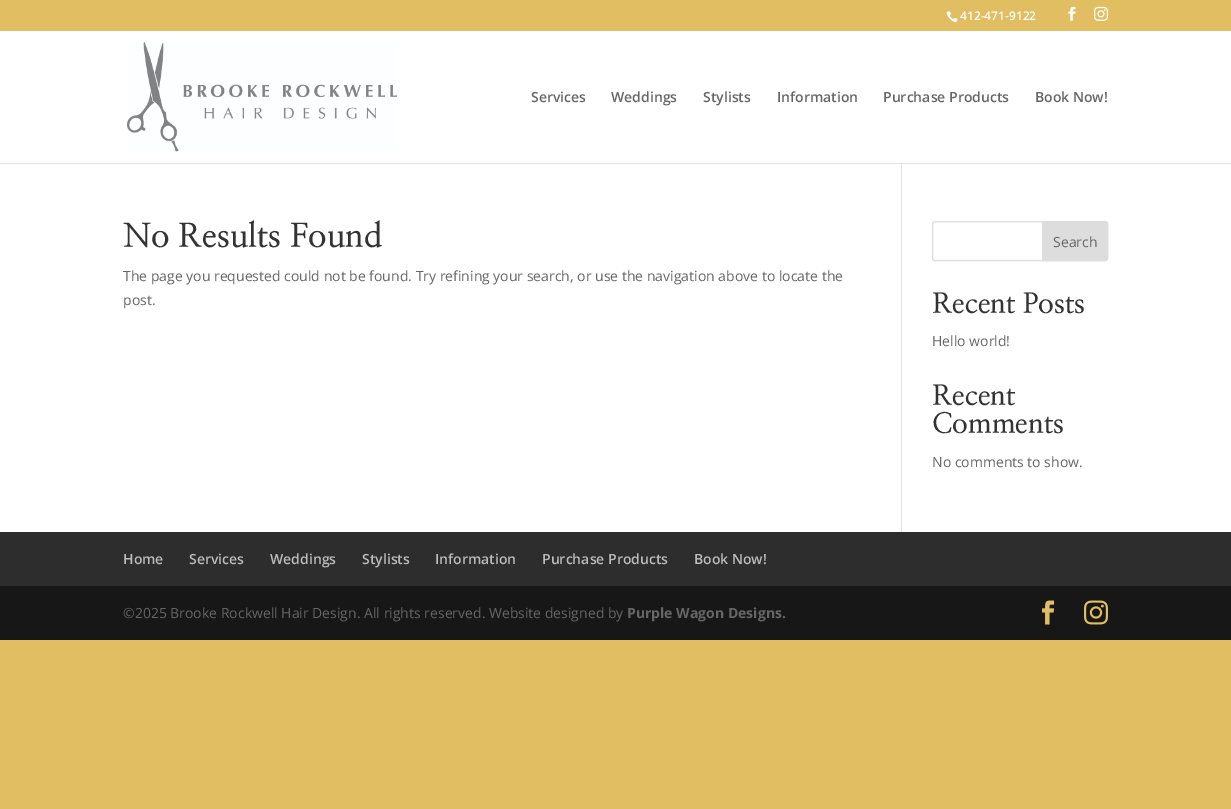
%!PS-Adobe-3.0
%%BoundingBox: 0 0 1231 809
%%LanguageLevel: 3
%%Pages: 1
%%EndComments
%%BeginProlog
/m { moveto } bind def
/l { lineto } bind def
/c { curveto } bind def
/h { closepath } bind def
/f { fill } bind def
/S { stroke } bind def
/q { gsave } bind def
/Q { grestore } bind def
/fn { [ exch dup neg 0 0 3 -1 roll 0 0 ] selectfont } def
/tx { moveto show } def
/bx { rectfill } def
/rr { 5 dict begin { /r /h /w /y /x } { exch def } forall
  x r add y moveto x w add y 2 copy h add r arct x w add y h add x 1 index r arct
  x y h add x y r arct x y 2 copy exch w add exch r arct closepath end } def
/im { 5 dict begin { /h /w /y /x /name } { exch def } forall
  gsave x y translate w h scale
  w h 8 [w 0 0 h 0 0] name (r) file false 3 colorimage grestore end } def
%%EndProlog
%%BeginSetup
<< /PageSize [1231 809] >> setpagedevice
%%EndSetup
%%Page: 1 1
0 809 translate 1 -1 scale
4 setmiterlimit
0.886 0.745 0.388 setrgbcolor
0 0 1231 809 bx
(image0.raw) 946 11 12 12 im
/OpenSans-SemiBold 12 fn
1 setgray
(412-471-9122) 960 20 tx
(image1.raw) 1068 6 8 15 im
(image2.raw) 1094 6 14 15 im
0 31 1231 132 bx
(image3.raw) 127 42 270 110 im
/OpenSans-SemiBold 14 fn
0.4 setgray
(Services) 531 102 tx
(Weddings) 611 102 tx
(Stylists) 703 102 tx
(Information) 777 102 tx
(Purchase Products) 883 102 tx
(Book Now!) 1035 102 tx
1 setgray
0 164 1231 368 bx
0.902 setgray
0 163 1231 1 bx
0.886 setgray
901 163 1 369 bx
0.796 setgray
901 163 1 1 bx
/NanumMyeongjo-Bold 33 fn
0.2 setgray
(No Results Found) 123 247 tx
/OpenSans-Regular 14 fn
0.4 setgray
(The page you requested could not be found. Try refining your search, or use the navigation above to locate the) 123 281 tx
(post.) 123 305 tx
0.867 setgray
932.5 221.5 175 39 2.5 rr S
1042.5 221.5 m 1105 221.5 l 1106.5 221.5 1107.5 222.5 1107.5 224 c 1107.5 258 l 1107.5 259.5 1106.5 260.5 1105 260.5 c 1042.5 260.5 l h q f Q
S
0.4 setgray
(Search) 1053 247 tx
/NanumMyeongjo-Bold 28 fn
0.2 setgray
(Recent Posts) 932 313 tx
/OpenSans-Regular 14 fn
0.4 setgray
(Hello world!) 932 346 tx
/NanumMyeongjo-Bold 28 fn
0.2 setgray
(Recent) 932 405 tx
(Comments) 932 433 tx
/OpenSans-Regular 14 fn
0.4 setgray
(No comments to show.) 932 467 tx
0.176 setgray
0 532 1231 54 bx
/OpenSans-SemiBold 14 fn
0.733 setgray
(Home) 123 564 tx
(Services) 189 564 tx
(Weddings) 270 564 tx
(Stylists) 362 564 tx
(Information) 435 564 tx
(Purchase Products) 542 564 tx
(Book Now!) 694 564 tx
0.09 setgray
0 586 1231 54 bx
/OpenSans-Regular 14 fn
0.4 setgray
(©2025 Brooke Rockwell Hair Design. All rights reserved. Website designed by) 123 618 tx
/OpenSans-Bold 14 fn
(Purple Wagon Designs.) 627 618 tx
(image4.raw) 1042 600 13 25 im
(image5.raw) 1084 600 24 25 im
showpage
%%EOF
